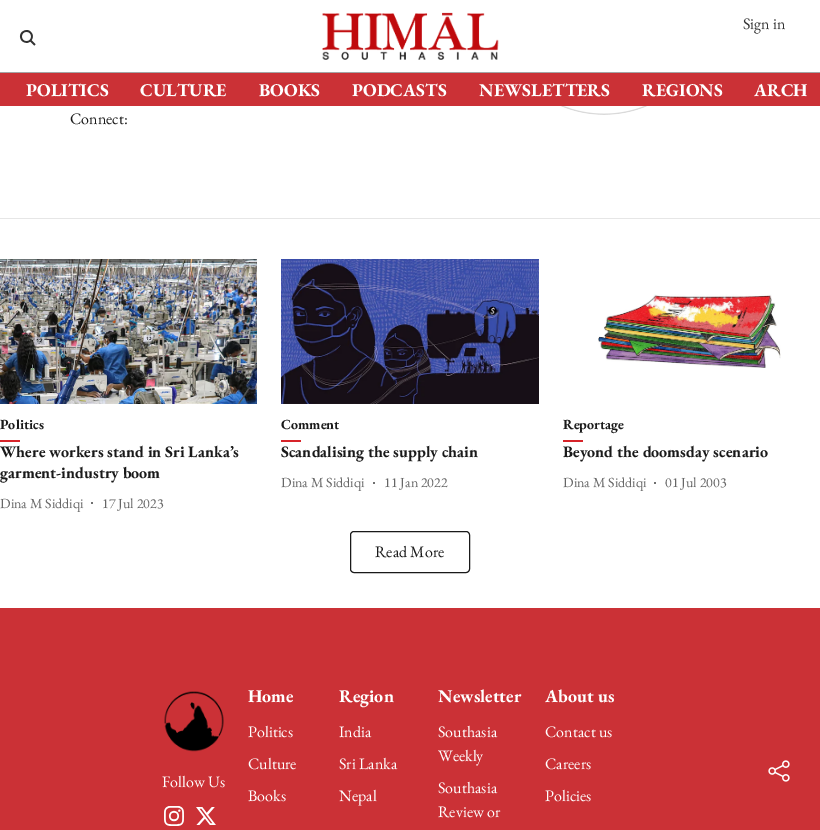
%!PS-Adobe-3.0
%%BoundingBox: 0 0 820 830
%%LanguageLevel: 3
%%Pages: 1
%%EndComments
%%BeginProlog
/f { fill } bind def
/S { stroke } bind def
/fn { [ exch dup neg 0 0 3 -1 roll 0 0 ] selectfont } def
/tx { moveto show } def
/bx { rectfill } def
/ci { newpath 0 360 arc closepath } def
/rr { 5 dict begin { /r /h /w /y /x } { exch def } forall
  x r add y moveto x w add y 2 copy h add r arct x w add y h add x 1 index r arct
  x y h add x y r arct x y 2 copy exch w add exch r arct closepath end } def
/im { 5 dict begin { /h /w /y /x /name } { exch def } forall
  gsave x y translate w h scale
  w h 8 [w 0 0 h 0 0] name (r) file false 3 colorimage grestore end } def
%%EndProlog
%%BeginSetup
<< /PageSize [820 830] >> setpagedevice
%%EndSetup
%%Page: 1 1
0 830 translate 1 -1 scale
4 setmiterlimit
1 setgray
0 0 820 830 bx
0.643 setgray
0 72 820 1 bx
(image0.raw) 322 12 177 48 im
/EBGaramond-Regular 16 fn
0.2 setgray
(Sign in) 743 29 tx
(image1.raw) 19 30 17 16 im
0.796 0.192 0.212 setrgbcolor
0 73 820 33 bx
/EBGaramond-Bold 18 fn
1 setgray
(POLITICS) 26 96 tx
(CULTURE) 140 96 tx
(BOOKS) 259 96 tx
(PODCASTS) 352 96 tx
(NEWSLETTERS) 479 96 tx
(REGIONS) 642 96 tx
(ARCH) 754 96 tx
0.902 setgray
0 218 820 1 bx
(image2.raw) 560 106 88 9 im
/EBGaramond-Regular 16 fn
0.102 setgray
(Connect:) 70 124 tx
0.796 0.192 0.212 setrgbcolor
0 608 820 222 bx
(image3.raw) 768 760 22 22 im
(image4.raw) 0 259 257 145 im
/EBGaramond-Bold 14 fn
0.102 setgray
(Politics) 0 429 tx
0.843 0.141 0.165 setrgbcolor
0 440 20 2 bx
/EBGaramond-Bold 16 fn
0.102 setgray
(Where workers stand in Sri Lanka’s) 0 457 tx
(garment-industry boom) 0 478 tx
/EBGaramond-Regular 14 fn
0.4 setgray
(Dina M Siddiqi) 0 508 tx
92 503 1 ci f
(17 Jul 2023) 102 508 tx
(image5.raw) 281 259 258 145 im
/EBGaramond-Bold 14 fn
0.102 setgray
(Comment) 281 429 tx
0.843 0.141 0.165 setrgbcolor
281 440 20 2 bx
/EBGaramond-Bold 16 fn
0.102 setgray
(Scandalising the supply chain) 281 457 tx
/EBGaramond-Regular 14 fn
0.4 setgray
(Dina M Siddiqi) 281 487 tx
374 483 1 ci f
(11 Jan 2022) 384 487 tx
(image6.raw) 598 294 183 74 im
/EBGaramond-Bold 14 fn
0.102 setgray
(Reportage) 563 429 tx
0.843 0.141 0.165 setrgbcolor
563 440 20 2 bx
/EBGaramond-Bold 16 fn
0.102 setgray
(Beyond the doomsday scenario) 563 457 tx
/EBGaramond-Regular 14 fn
0.4 setgray
(Dina M Siddiqi) 563 487 tx
655 483 1 ci f
(01 Jul 2003) 665 487 tx
0.102 setgray
350.5 531.5 119 41 3.5 rr S
/EBGaramond-Regular 16 fn
(Read More) 375 557 tx
(image7.raw) 164 691 60 61 im
1 setgray
(Follow Us) 162 787 tx
(image8.raw) 164 806 20 20 im
(image9.raw) 196 807 20 18 im
/EBGaramond-Bold 18 fn
(Home) 248 702 tx
/EBGaramond-Regular 16 fn
(Politics) 248 737 tx
(Culture) 248 769 tx
(Books) 248 801 tx
/EBGaramond-Bold 18 fn
(Region) 339 702 tx
/EBGaramond-Regular 16 fn
(India) 339 737 tx
(Sri Lanka) 339 769 tx
(Nepal) 339 801 tx
/EBGaramond-Bold 18 fn
(Newsletter) 438 702 tx
/EBGaramond-Regular 16 fn
(Southasia) 438 737 tx
(Weekly) 438 761 tx
(Southasia) 438 793 tx
(Review or) 438 817 tx
/EBGaramond-Bold 18 fn
(About us) 545 702 tx
/EBGaramond-Regular 16 fn
(Contact us) 545 737 tx
(Careers) 545 769 tx
(Policies) 545 801 tx
showpage
%%EOF
